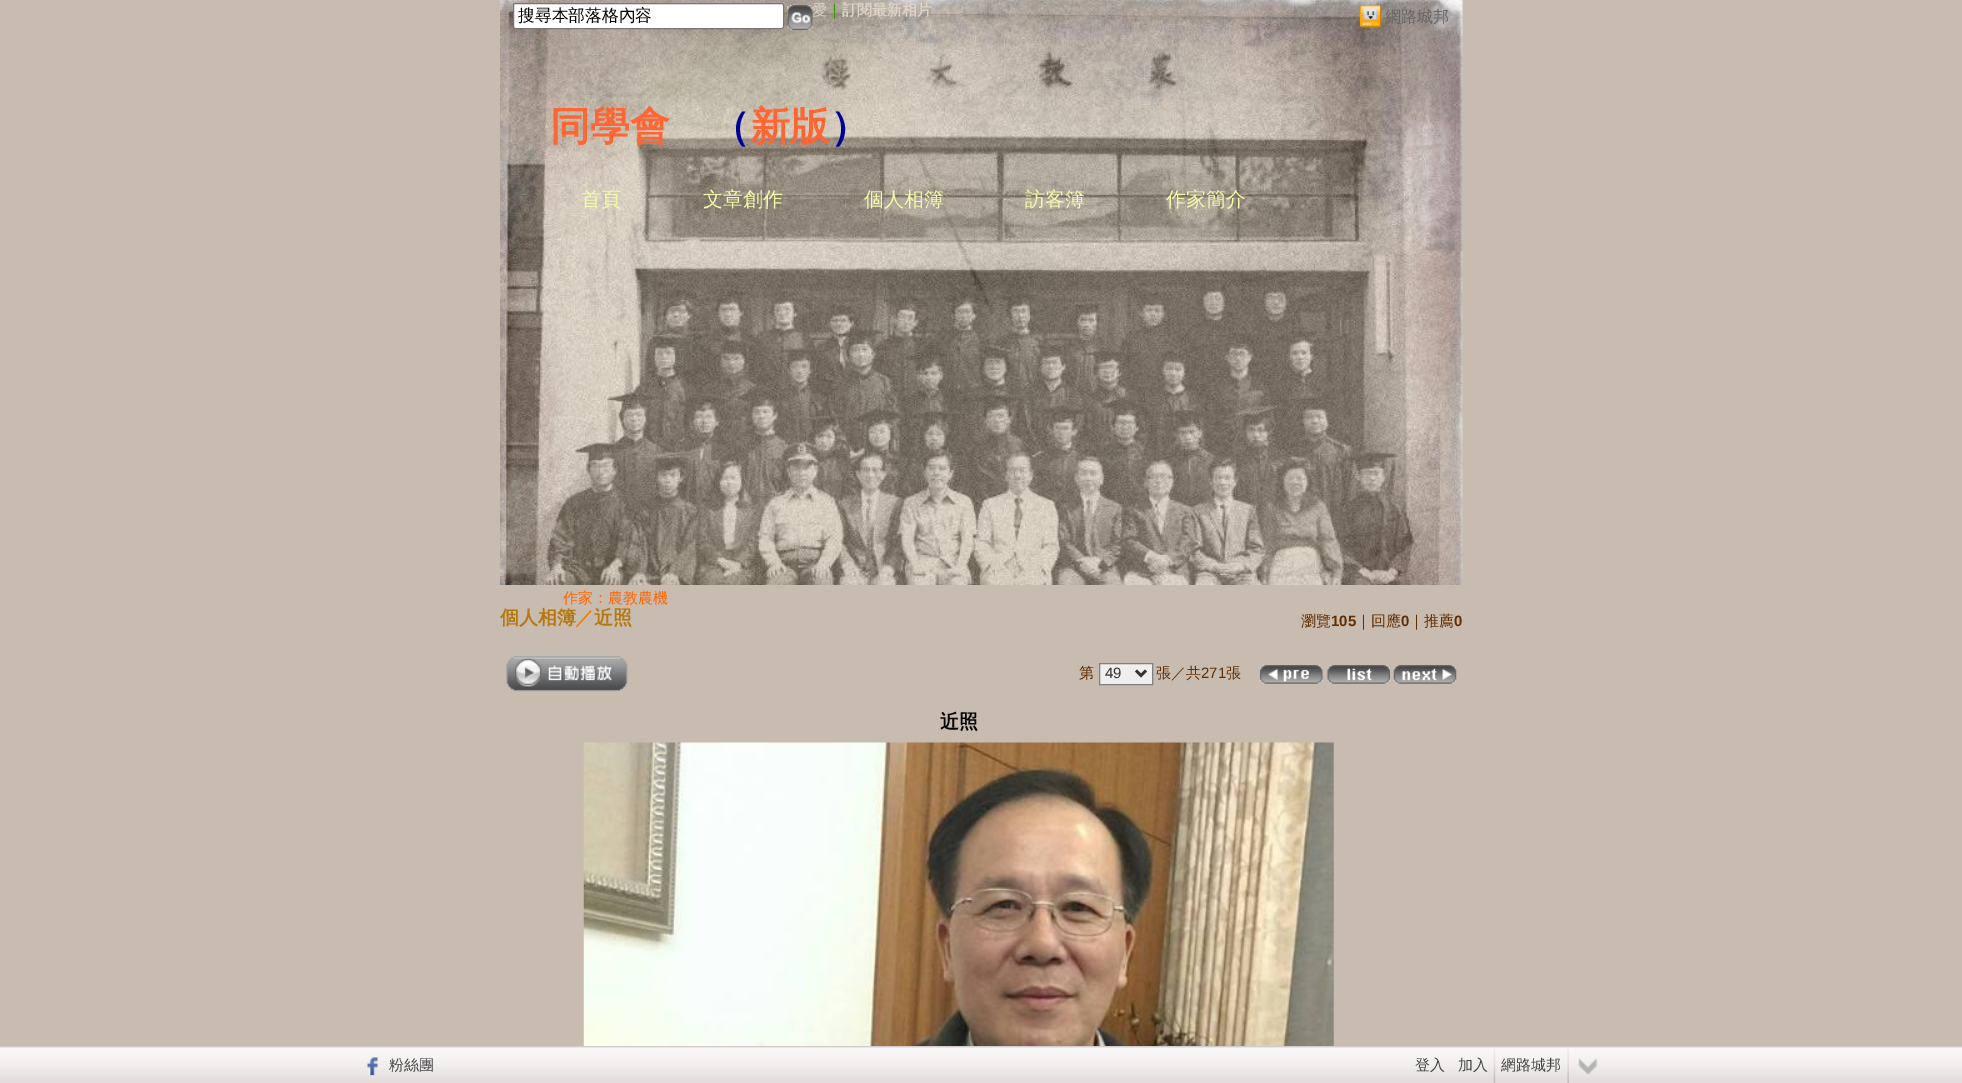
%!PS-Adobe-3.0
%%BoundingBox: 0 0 1962 1083
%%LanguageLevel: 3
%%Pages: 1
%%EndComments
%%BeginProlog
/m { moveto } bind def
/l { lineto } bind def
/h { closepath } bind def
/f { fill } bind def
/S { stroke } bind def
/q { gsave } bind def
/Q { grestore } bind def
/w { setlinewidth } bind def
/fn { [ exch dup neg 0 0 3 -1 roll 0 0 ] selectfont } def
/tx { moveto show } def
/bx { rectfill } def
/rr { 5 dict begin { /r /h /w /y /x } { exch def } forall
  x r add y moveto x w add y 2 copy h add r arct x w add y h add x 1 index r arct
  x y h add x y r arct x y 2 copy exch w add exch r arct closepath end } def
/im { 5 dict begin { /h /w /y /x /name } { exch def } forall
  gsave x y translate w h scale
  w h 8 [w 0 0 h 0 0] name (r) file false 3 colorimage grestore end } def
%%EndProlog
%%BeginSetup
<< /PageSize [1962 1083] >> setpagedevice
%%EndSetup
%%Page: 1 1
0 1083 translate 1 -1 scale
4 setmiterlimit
0.784 0.737 0.69 setrgbcolor
0 0 1962 1083 bx
(image0.raw) 500 0 963 585 im
1 setgray
513.5 3.5 270 25 2 rr q f Q
0.463 setgray
S
/WenQuanYiZenHei-Medium 16.75 fn
0 setgray
(搜尋本部落格內容) 518 21 tx
/WenQuanYiZenHei-Medium 15 fn
0.867 0.831 0.773 setrgbcolor
(愛) 812 15 tx
(image1.raw) 787 5 26 25 im
0.2 0.6 0 setrgbcolor
(｜) 827 15 tx
/WenQuanYiZenHei-Bold 15 fn
0.867 0.831 0.773 setrgbcolor
(訂閱最新相片) 842 15 tx
/WenQuanYiZenHei-Bold 40 fn
1 0.4 0.2 setrgbcolor
(同學會) 550 140 tx
0 0 0.6 setrgbcolor
(（) 710 140 tx
1 0.4 0.2 setrgbcolor
(新版) 750 140 tx
0 0 0.6 setrgbcolor
(）) 830 140 tx
/WenQuanYiZenHei-Medium 20 fn
0.953 0.984 0.667 setrgbcolor
(首頁) 581 206 tx
(文章創作) 703 206 tx
(個人相簿) 864 206 tx
(訪客簿) 1025 206 tx
(作家簡介) 1166 206 tx
/WenQuanYiZenHei-Medium 15 fn
1 0.4 0 setrgbcolor
(作家：農教農機) 563 603 tx
(image2.raw) 1360 5 22 23 im
/WenQuanYiZenHei-Medium 16 fn
0.4 setgray
(網路城邦) 1385 22 tx
/WenQuanYiZenHei-Bold 19 fn
0.718 0.467 0.051 setrgbcolor
(個人相簿) 500 624 tx
0.957 0.494 0 setrgbcolor
(／) 575 624 tx
0.718 0.467 0.051 setrgbcolor
(近照) 594 624 tx
/WenQuanYiZenHei-Medium 15 fn
0.384 0.18 0.004 setrgbcolor
(瀏覽) 1301 626 tx
/LiberationSans-Bold 15 fn
(105) 1331 626 tx
/WenQuanYiZenHei-Medium 15 fn
(｜回應) 1356 626 tx
/LiberationSans-Bold 15 fn
(0) 1401 626 tx
/WenQuanYiZenHei-Medium 15 fn
(｜推薦) 1409 626 tx
/LiberationSans-Bold 15 fn
(0) 1454 626 tx
(image3.raw) 506 656 122 36 im
/WenQuanYiZenHei-Medium 15 fn
(第) 1079 678 tx
0.937 setgray
1099.5 663.5 m 1152.5 663.5 l 1152.5 684.5 l 1099.5 684.5 l h q f Q
0.502 setgray
S
0.2 setgray
2.5 w
1136 670.5 m 1141 675.5 l 1146 670.5 l S
/LiberationSans-Regular 15 fn
(49) 1105 678 tx
/WenQuanYiZenHei-Medium 15 fn
0.384 0.18 0.004 setrgbcolor
(張／共) 1156 678 tx
/LiberationSans-Regular 15 fn
(271) 1201 678 tx
/WenQuanYiZenHei-Medium 15 fn
(張) 1226 678 tx
(image4.raw) 1260 665 63 19 im
(image5.raw) 1327 665 63 19 im
(image6.raw) 1393 665 64 19 im
/WenQuanYiZenHei-Bold 19 fn
0 setgray
(近照) 940 728 tx
(image7.raw) 583 742 751 304 im
(image8.raw) 0 1046 1962 37 im
(image9.raw) 367 1057 11 19 im
/WenQuanYiZenHei-Medium 15 fn
0.267 setgray
(粉絲團) 389 1070 tx
(登入) 1415 1070 tx
(加入) 1458 1070 tx
(image10.raw) 1493 1048 3 35 im
(網路城邦) 1501 1070 tx
(image11.raw) 1567 1049 2 34 im
(image12.raw) 1578 1058 20 17 im
showpage
%%EOF
